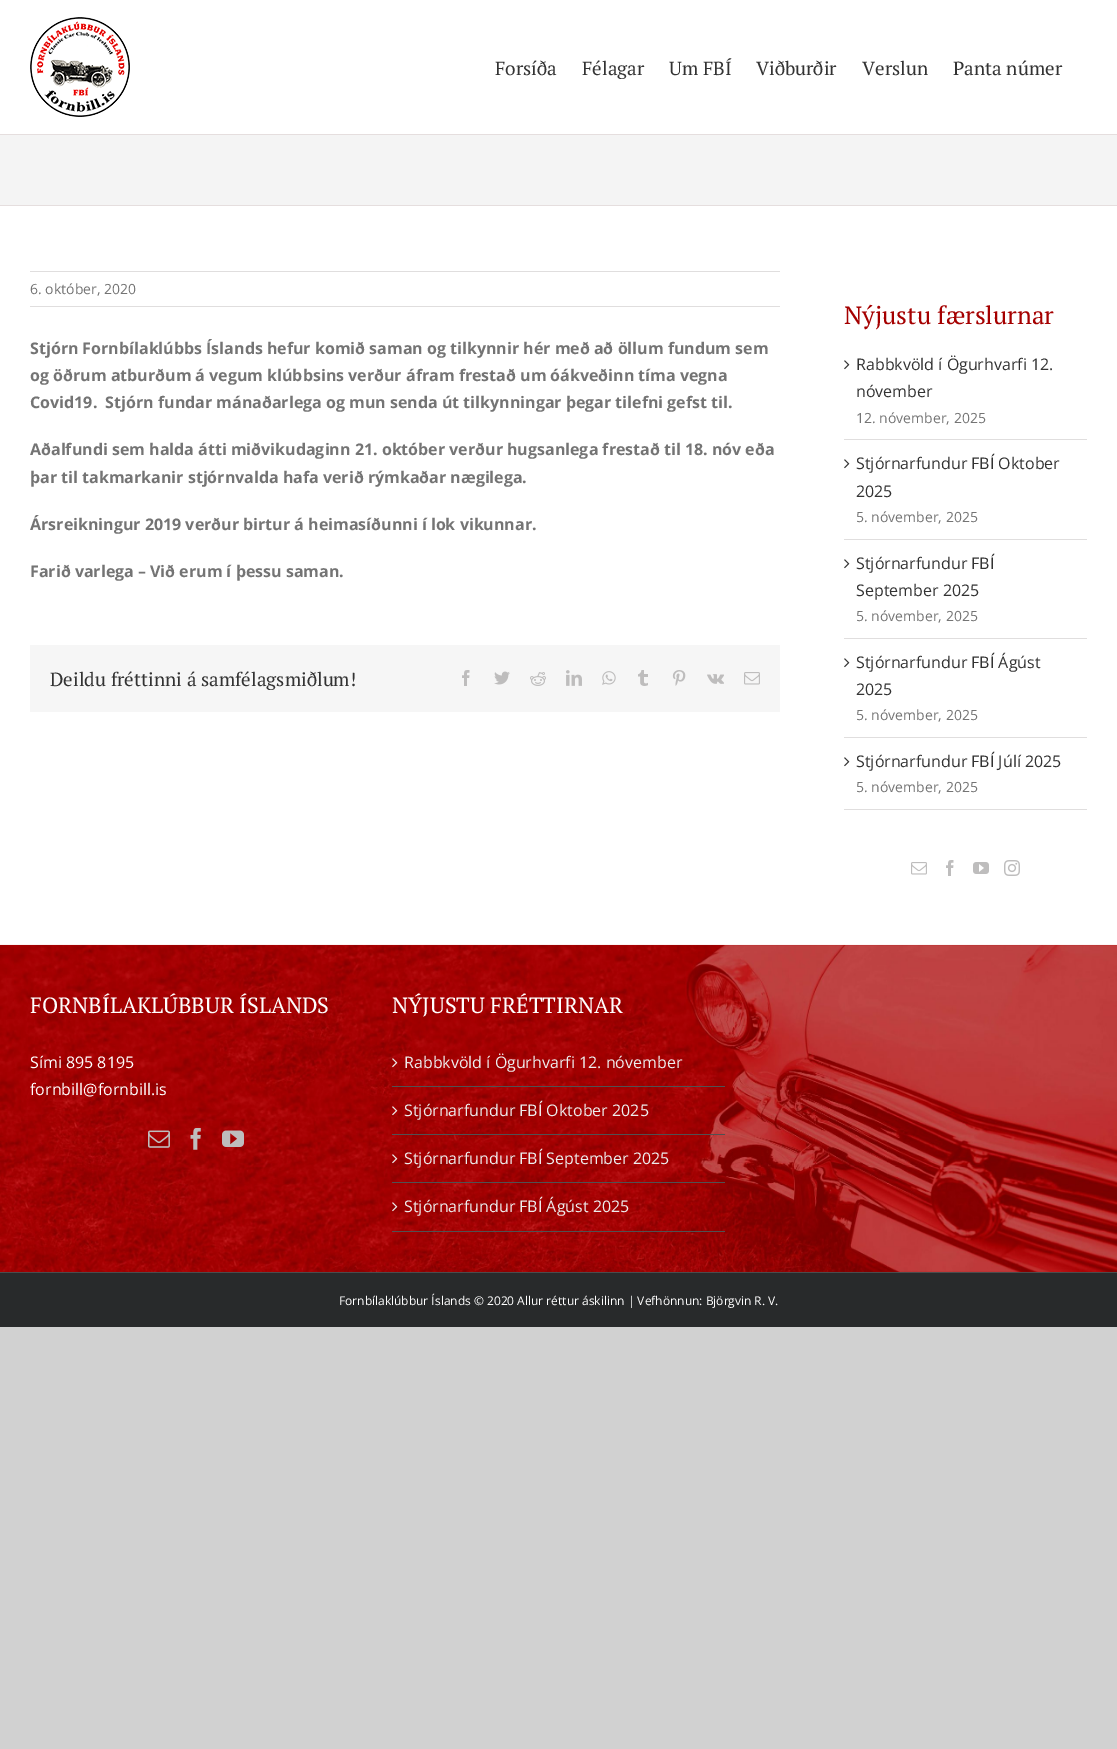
%!PS-Adobe-3.0
%%BoundingBox: 0 0 1117 1749
%%LanguageLevel: 3
%%Pages: 1
%%EndComments
%%BeginProlog
/fn { [ exch dup neg 0 0 3 -1 roll 0 0 ] selectfont } def
/tx { moveto show } def
/bx { rectfill } def
/im { 5 dict begin { /h /w /y /x /name } { exch def } forall
  gsave x y translate w h scale
  w h 8 [w 0 0 h 0 0] name (r) file false 3 colorimage grestore end } def
%%EndProlog
%%BeginSetup
<< /PageSize [1117 1749] >> setpagedevice
%%EndSetup
%%Page: 1 1
0 1749 translate 1 -1 scale
4 setmiterlimit
0.82 setgray
0 0 1117 1749 bx
1 setgray
0 0 1117 1272 bx
(image0.raw) 30 17 100 100 im
/PTSerif-Regular 19 fn
0.2 setgray
(Forsíða) 495 75 tx
(Félagar) 582 75 tx
(Um FBÍ) 669 75 tx
(Viðburðir) 756 75 tx
(Verslun) 862 75 tx
(Panta númer) 953 75 tx
0.957 setgray
0 135 1117 70 bx
0.898 0.871 0.871 setrgbcolor
0 134 1117 1 bx
0 205 1117 1 bx
0.878 0.871 0.871 setrgbcolor
30 271 750 1 bx
30 306 750 1 bx
/OpenSans-Regular 14 fn
0.455 setgray
(6. október, 2020) 30 294 tx
/OpenSans-Bold 16 fn
(Stjórn Fornbílaklúbbs Íslands hefur komið saman og tilkynnir hér með að öllum fundum sem) 30 354 tx
(og öðrum atburðum á vegum klúbbsins verður áfram frestað um óákveðinn tíma vegna) 30 381 tx
(Covid19.  Stjórn fundar mánaðarlega og mun senda út tilkynningar þegar tilefni gefst til.) 30 408 tx
(Aðalfundi sem halda átti miðvikudaginn 21. október verður hugsanlega frestað til 18. nóv eða) 30 455 tx
(þar til takmarkanir stjórnvalda hafa verið rýmkaðar nægilega.) 30 483 tx
(Ársreikningur 2019 verður birtur á heimasíðunni í lok vikunnar.) 30 530 tx
(Farið varlega – Við erum í þessu saman.) 30 577 tx
0.965 setgray
30 645 750 67 bx
/PTSerif-Regular 19 fn
0.2 setgray
(Deildu fréttinni á samfélagsmiðlum!) 50 686 tx
(image1.raw) 462 670 8 16 im
(image2.raw) 494 671 16 14 im
(image3.raw) 530 672 16 14 im
(image4.raw) 566 670 16 16 im
(image5.raw) 602 671 14 14 im
(image6.raw) 638 670 10 16 im
(image7.raw) 672 670 14 16 im
(image8.raw) 707 674 17 10 im
(image9.raw) 744 672 16 13 im
/PTSerif-Regular 25 fn
0.647 0 0 setrgbcolor
(Nýjustu færslurnar) 844 324 tx
0.878 0.871 0.871 setrgbcolor
844 439 243 1 bx
(image10.raw) 844 360 6 10 im
/OpenSans-Regular 16 fn
0.2 setgray
(Rabbkvöld í Ögurhvarfi 12.) 856 370 tx
(nóvember) 856 397 tx
/OpenSans-Regular 14 fn
0.455 setgray
(12. nóvember, 2025) 856 423 tx
0.878 0.871 0.871 setrgbcolor
844 539 243 1 bx
(image10.raw) 844 459 6 10 im
/OpenSans-Regular 16 fn
0.2 setgray
(Stjórnarfundur FBÍ Oktober) 856 469 tx
(2025) 856 497 tx
/OpenSans-Regular 14 fn
0.455 setgray
(5. nóvember, 2025) 856 522 tx
0.878 0.871 0.871 setrgbcolor
844 638 243 1 bx
(image10.raw) 844 559 6 10 im
/OpenSans-Regular 16 fn
0.2 setgray
(Stjórnarfundur FBÍ) 856 569 tx
(September 2025) 856 596 tx
/OpenSans-Regular 14 fn
0.455 setgray
(5. nóvember, 2025) 856 621 tx
0.878 0.871 0.871 setrgbcolor
844 737 243 1 bx
(image10.raw) 844 658 6 10 im
/OpenSans-Regular 16 fn
0.2 setgray
(Stjórnarfundur FBÍ Ágúst) 856 668 tx
(2025) 856 695 tx
/OpenSans-Regular 14 fn
0.455 setgray
(5. nóvember, 2025) 856 720 tx
0.878 0.871 0.871 setrgbcolor
844 809 243 1 bx
(image10.raw) 844 757 6 10 im
/OpenSans-Regular 16 fn
0.2 setgray
(Stjórnarfundur FBÍ Júlí 2025) 856 767 tx
/OpenSans-Regular 14 fn
0.455 setgray
(5. nóvember, 2025) 856 792 tx
(image11.raw) 911 862 16 13 im
(image12.raw) 946 860 8 16 im
(image13.raw) 973 862 16 12 im
(image14.raw) 1004 860 16 16 im
(image15.raw) 0 944 1117 328 im
/PTSerif-Regular 22 fn
1 setgray
(FORNBÍLAKLÚBBUR ÍSLANDS) 30 1013 tx
/OpenSans-Regular 16 fn
(Sími 895 8195) 30 1068 tx
(fornbill@fornbill.is) 30 1095 tx
(image16.raw) 148 1130 22 18 im
(image17.raw) 190 1128 11 22 im
(image18.raw) 222 1130 22 17 im
/PTSerif-Regular 22 fn
(NÝJUSTU FRÉTTIRNAR) 392 1013 tx
0.314 0.318 0.322 setrgbcolor
392 1086 333 1 bx
(image19.raw) 392 1058 6 10 im
/OpenSans-Regular 16 fn
0.929 setgray
(Rabbkvöld í Ögurhvarfi 12. nóvember) 404 1068 tx
0.314 0.318 0.322 setrgbcolor
392 1134 333 1 bx
(image20.raw) 392 1106 6 10 im
0.929 setgray
(Stjórnarfundur FBÍ Oktober 2025) 404 1116 tx
0.314 0.318 0.322 setrgbcolor
392 1182 333 1 bx
(image21.raw) 392 1154 6 10 im
0.929 setgray
(Stjórnarfundur FBÍ September 2025) 404 1164 tx
0.314 0.318 0.322 setrgbcolor
392 1231 333 1 bx
(image22.raw) 392 1202 6 10 im
0.929 setgray
(Stjórnarfundur FBÍ Ágúst 2025) 404 1212 tx
0.157 0.165 0.169 setrgbcolor
0 1273 1117 54 bx
0.294 0.298 0.302 setrgbcolor
0 1272 1117 1 bx
/OpenSans-Regular 12 fn
1 setgray
(Fornbílaklúbbur Íslands © 2020 Allur réttur áskilinn | Vefhönnun: Björgvin R. V.) 339 1305 tx
showpage
%%EOF
